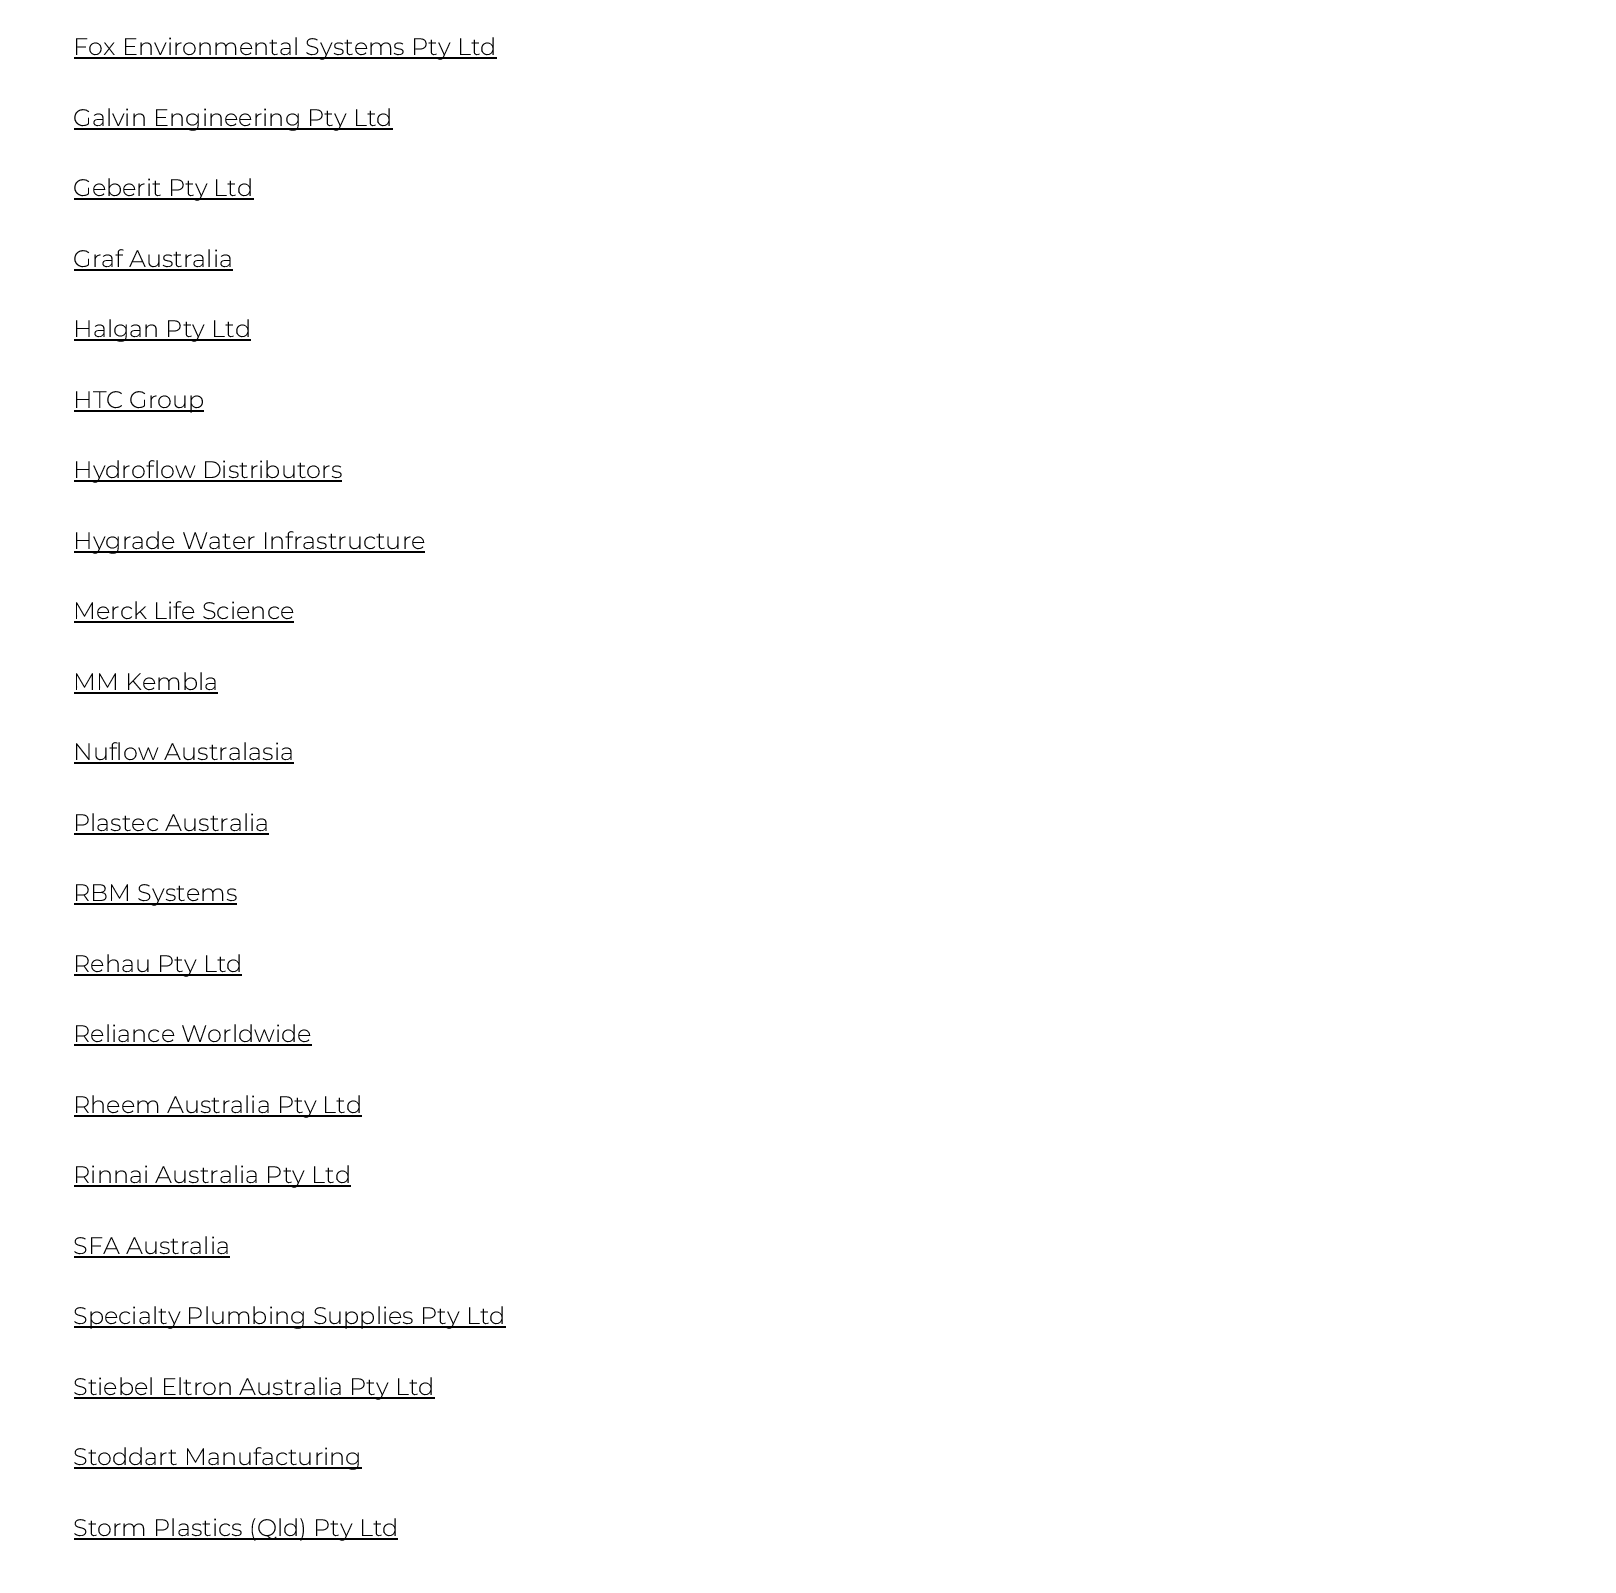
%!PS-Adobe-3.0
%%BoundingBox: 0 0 1616 1593
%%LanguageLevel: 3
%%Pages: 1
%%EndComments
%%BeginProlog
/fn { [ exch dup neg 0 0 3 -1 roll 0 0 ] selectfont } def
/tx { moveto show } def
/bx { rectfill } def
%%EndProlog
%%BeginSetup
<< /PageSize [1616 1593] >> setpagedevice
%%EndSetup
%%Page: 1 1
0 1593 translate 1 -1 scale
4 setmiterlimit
1 setgray
0 0 1616 1593 bx
0 setgray
74 57 423 2 bx
/Montserrat-Light 24 fn
(Fox Environmental Systems Pty Ltd) 73 55 tx
74 128 319 2 bx
(Galvin Engineering Pty Ltd) 73 126 tx
74 198 180 2 bx
(Geberit Pty Ltd) 73 196 tx
(Graf Australia) 73 267 tx
74 269 159 2 bx
74 339 177 2 bx
(Halgan Pty Ltd) 73 337 tx
74 410 130 2 bx
(HTC Group) 73 408 tx
74 480 268 2 bx
(Hydroflow Distributors) 73 478 tx
74 551 351 2 bx
(Hygrade Water Infrastructure) 73 549 tx
(Merck Life Science) 73 619 tx
74 621 220 2 bx
(MM Kembla) 73 690 tx
74 692 144 2 bx
(Nuflow Australasia) 73 760 tx
74 762 220 2 bx
(Plastec Australia) 73 831 tx
74 833 195 2 bx
74 903 163 2 bx
(RBM Systems) 73 901 tx
74 974 168 2 bx
(Rehau Pty Ltd) 73 972 tx
(Reliance Worldwide) 73 1042 tx
74 1044 238 2 bx
74 1115 288 2 bx
(Rheem Australia Pty Ltd) 73 1113 tx
74 1185 277 2 bx
(Rinnai Australia Pty Ltd) 73 1183 tx
(SFA Australia) 73 1254 tx
74 1256 156 2 bx
74 1326 432 2 bx
(Specialty Plumbing Supplies Pty Ltd) 73 1324 tx
74 1397 361 2 bx
(Stiebel Eltron Australia Pty Ltd) 73 1395 tx
74 1467 288 2 bx
(Stoddart Manufacturing) 73 1465 tx
74 1538 324 2 bx
(Storm Plastics \(Qld\) Pty Ltd) 73 1536 tx
showpage
%%EOF
